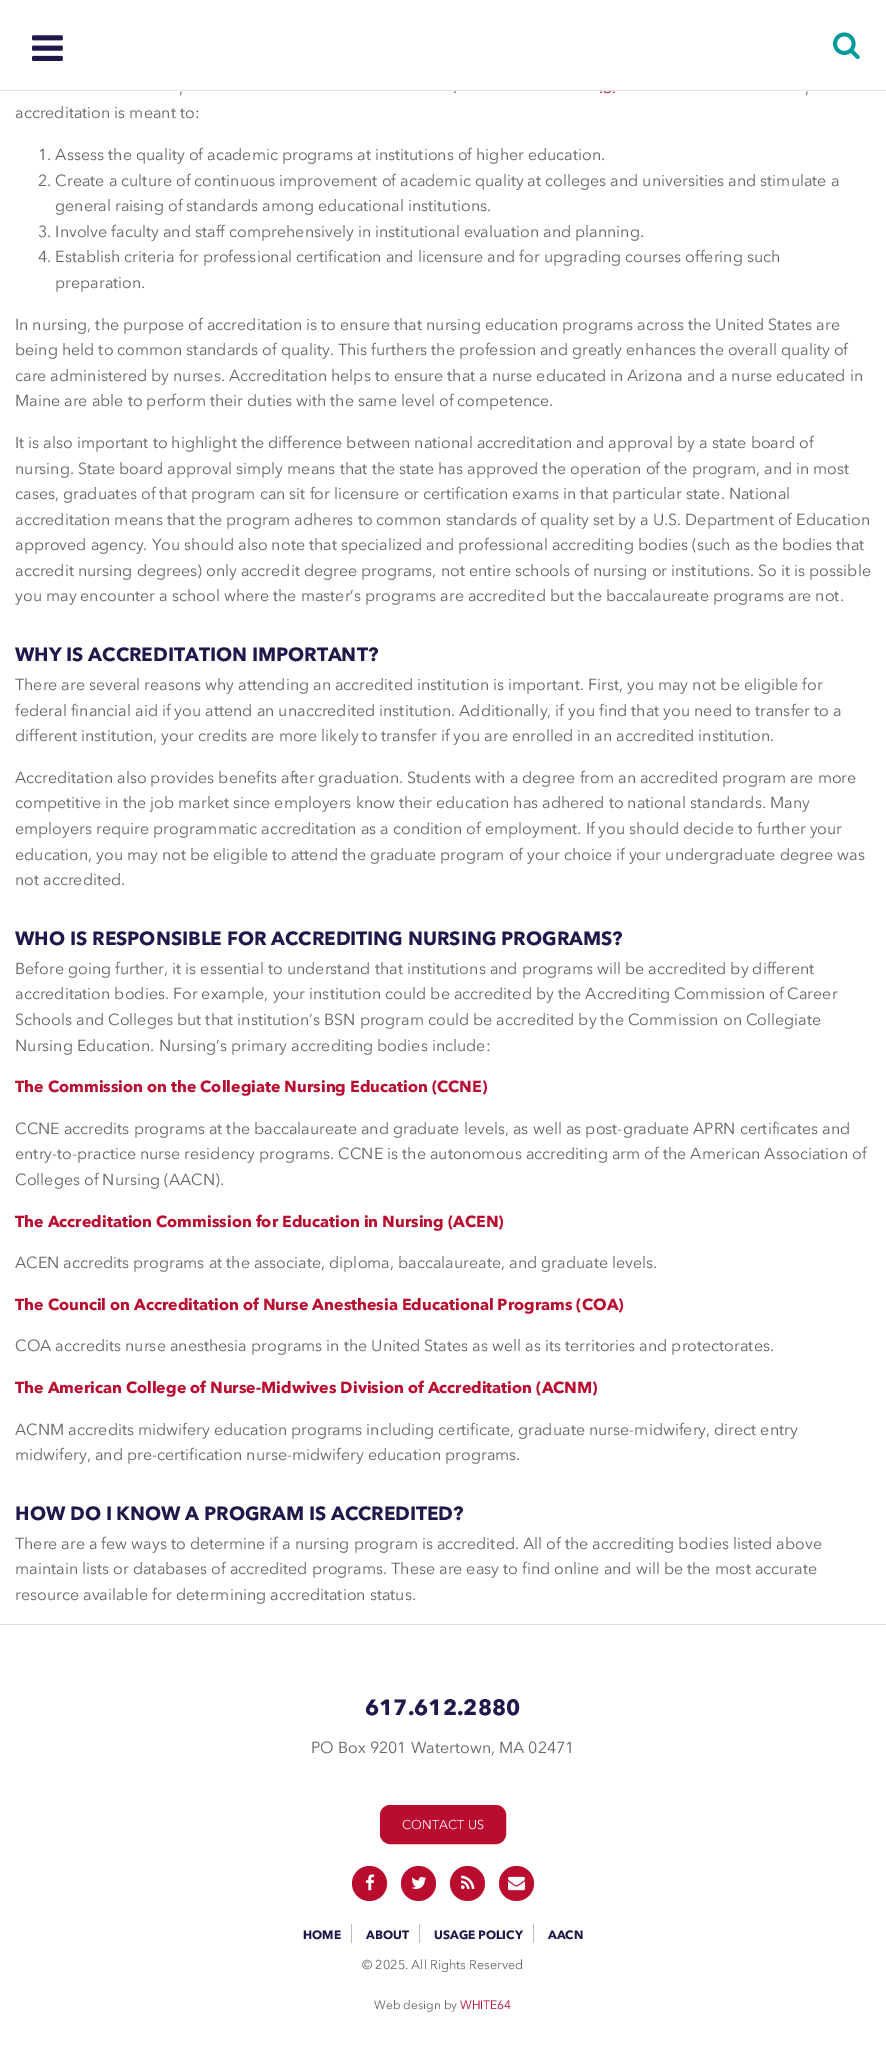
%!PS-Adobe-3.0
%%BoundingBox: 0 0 886 2057
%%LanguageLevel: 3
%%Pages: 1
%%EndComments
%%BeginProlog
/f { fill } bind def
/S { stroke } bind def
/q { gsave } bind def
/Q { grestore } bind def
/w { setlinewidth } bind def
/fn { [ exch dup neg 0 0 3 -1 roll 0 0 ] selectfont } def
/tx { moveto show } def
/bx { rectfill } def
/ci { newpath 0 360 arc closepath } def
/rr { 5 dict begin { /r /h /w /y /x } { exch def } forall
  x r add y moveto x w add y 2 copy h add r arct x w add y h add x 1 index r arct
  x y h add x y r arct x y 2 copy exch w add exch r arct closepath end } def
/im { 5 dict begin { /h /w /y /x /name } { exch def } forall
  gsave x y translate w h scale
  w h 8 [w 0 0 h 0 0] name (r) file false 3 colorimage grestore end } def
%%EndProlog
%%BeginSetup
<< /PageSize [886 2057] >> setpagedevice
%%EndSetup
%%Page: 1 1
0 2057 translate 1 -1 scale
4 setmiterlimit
1 setgray
0 0 886 2057 bx
/AvenirNext-Regular 16 fn
0.729 0.047 0.184 setrgbcolor
(.S.) 599 93 tx
1 setgray
604 81 8 9 bx
0.882 setgray
0 90 886 1 bx
(image0.raw) 32 35 31 26 im
(image1.raw) 833 32 27 28 im
0.396 setgray
(,) 179 93 tx
(.) 453 93 tx
(,) 805 93 tx
(accreditation is meant to:) 15 118 tx
(1. Assess the quality of academic programs at institutions of higher education.) 38 160 tx
(2. Create a culture of continuous improvement of academic quality at colleges and universities and stimulate a) 38 186 tx
(general raising of standards among educational institutions.) 55 211 tx
(3. Involve faculty and staff comprehensively in institutional evaluation and planning.) 38 237 tx
(4. Establish criteria for professional certification and licensure and for upgrading courses offering such) 38 262 tx
(preparation.) 55 288 tx
(In nursing, the purpose of accreditation is to ensure that nursing education programs across the United States are) 15 330 tx
(being held to common standards of quality. This furthers the profession and greatly enhances the overall quality of) 15 355 tx
(care administered by nurses. Accreditation helps to ensure that a nurse educated in Arizona and a nurse educated in) 15 381 tx
(Maine are able to perform their duties with the same level of competence.) 15 406 tx
(It is also important to highlight the difference between national accreditation and approval by a state board of) 15 448 tx
(nursing. State board approval simply means that the state has approved the operation of the program, and in most) 15 474 tx
(cases, graduates of that program can sit for licensure or certification exams in that particular state. National) 15 499 tx
(accreditation means that the program adheres to common standards of quality set by a U.S. Department of Education) 15 525 tx
(approved agency. You should also note that specialized and professional accrediting bodies \(such as the bodies that) 15 550 tx
(accredit nursing degrees\) only accredit degree programs, not entire schools of nursing or institutions. So it is possible) 15 576 tx
(you may encounter a school where the master’s programs are accredited but the baccalaureate programs are not.) 15 601 tx
/AvenirNext-Bold 19 fn
0.133 0.09 0.29 setrgbcolor
(WHY IS ACCREDITATION IMPORTANT?) 15 661 tx
/AvenirNext-Regular 16 fn
0.396 setgray
(There are several reasons why attending an accredited institution is important. First, you may not be eligible for) 15 690 tx
(federal financial aid if you attend an unaccredited institution. Additionally, if you find that you need to transfer to a) 15 716 tx
(different institution, your credits are more likely to transfer if you are enrolled in an accredited institution.) 15 741 tx
(Accreditation also provides benefits after graduation. Students with a degree from an accredited program are more) 15 783 tx
(competitive in the job market since employers know their education has adhered to national standards. Many) 15 808 tx
(employers require programmatic accreditation as a condition of employment. If you should decide to further your) 15 834 tx
(education, you may not be eligible to attend the graduate program of your choice if your undergraduate degree was) 15 860 tx
(not accredited.) 15 885 tx
/AvenirNext-Bold 19 fn
0.133 0.09 0.29 setrgbcolor
(WHO IS RESPONSIBLE FOR ACCREDITING NURSING PROGRAMS?) 15 945 tx
/AvenirNext-Regular 16 fn
0.396 setgray
(Before going further, it is essential to understand that institutions and programs will be accredited by different) 15 974 tx
(accreditation bodies. For example, your institution could be accredited by the Accrediting Commission of Career) 15 999 tx
(Schools and Colleges but that institution’s BSN program could be accredited by the Commission on Collegiate) 15 1025 tx
(Nursing Education. Nursing’s primary accrediting bodies include:) 15 1051 tx
/AvenirNext-Bold 16 fn
0.729 0.047 0.184 setrgbcolor
(The Commission on the Collegiate Nursing Education \(CCNE\)) 15 1092 tx
/AvenirNext-Regular 16 fn
0.396 setgray
(CCNE accredits programs at the baccalaureate and graduate levels, as well as post-graduate APRN certificates and) 15 1134 tx
(entry-to-practice nurse residency programs. CCNE is the autonomous accrediting arm of the American Association of) 15 1159 tx
(Colleges of Nursing \(AACN\).) 15 1185 tx
/AvenirNext-Bold 16 fn
0.729 0.047 0.184 setrgbcolor
(The Accreditation Commission for Education in Nursing \(ACEN\)) 15 1227 tx
/AvenirNext-Regular 16 fn
0.396 setgray
(ACEN accredits programs at the associate, diploma, baccalaureate, and graduate levels.) 15 1268 tx
/AvenirNext-Bold 16 fn
0.729 0.047 0.184 setrgbcolor
(The Council on Accreditation of Nurse Anesthesia Educational Programs \(COA\)) 15 1310 tx
/AvenirNext-Regular 16 fn
0.396 setgray
(COA accredits nurse anesthesia programs in the United States as well as its territories and protectorates.) 15 1351 tx
/AvenirNext-Bold 16 fn
0.729 0.047 0.184 setrgbcolor
(The American College of Nurse-Midwives Division of Accreditation \(ACNM\)) 15 1393 tx
/AvenirNext-Regular 16 fn
0.396 setgray
(ACNM accredits midwifery education programs including certificate, graduate nurse-midwifery, direct entry) 15 1435 tx
(midwifery, and pre-certification nurse-midwifery education programs.) 15 1460 tx
/AvenirNext-Bold 19 fn
0.133 0.09 0.29 setrgbcolor
(HOW DO I KNOW A PROGRAM IS ACCREDITED?) 15 1520 tx
/AvenirNext-Regular 16 fn
0.396 setgray
(There are a few ways to determine if a nursing program is accredited. All of the accrediting bodies listed above) 15 1549 tx
(maintain lists or databases of accredited programs. These are easy to find online and will be the most accurate) 15 1574 tx
(resource available for determining accreditation status.) 15 1600 tx
0.867 setgray
0 1624 886 1 bx
/AvenirNext-Bold 22 fn
0.133 0.09 0.29 setrgbcolor
(617.612.2880) 365 1715 tx
/AvenirNext-Regular 16 fn
0.396 setgray
(PO Box 9201 Watertown, MA 02471) 311 1753 tx
0.729 0.047 0.184 setrgbcolor
381 1806 124 37 9 rr q f Q
2 w
S
/AvenirNext-Regular 12.75 fn
1 setgray
(CONTACT US) 402 1829 tx
0.729 0.047 0.184 setrgbcolor
369.5 1883.5 17.5 ci f
(image2.raw) 365 1874 10 17 im
418.5 1883.5 17.5 ci f
(image3.raw) 411 1876 16 13 im
467.5 1883.5 17.5 ci f
(image4.raw) 461 1875 14 14 im
516.5 1883.5 17.5 ci f
(image5.raw) 508 1876 17 15 im
/AvenirNext-Bold 12 fn
0.133 0.09 0.29 setrgbcolor
(HOME) 303 1939 tx
0.741 0.745 0.753 setrgbcolor
351 1924 1 19 bx
0.133 0.09 0.29 setrgbcolor
(ABOUT) 366 1939 tx
0.741 0.745 0.753 setrgbcolor
419 1924 1 19 bx
0.133 0.09 0.29 setrgbcolor
(USAGE POLICY) 434 1939 tx
0.741 0.745 0.753 setrgbcolor
533 1924 1 19 bx
0.133 0.09 0.29 setrgbcolor
(AACN) 548 1939 tx
/AvenirNext-Regular 12.75 fn
0.396 setgray
(© 2025. All Rights Reserved) 362 1969 tx
/AvenirNext-Regular 12 fn
(Web design by) 374 2009 tx
0.729 0.047 0.184 setrgbcolor
(WHITE64) 460 2009 tx
showpage
%%EOF
